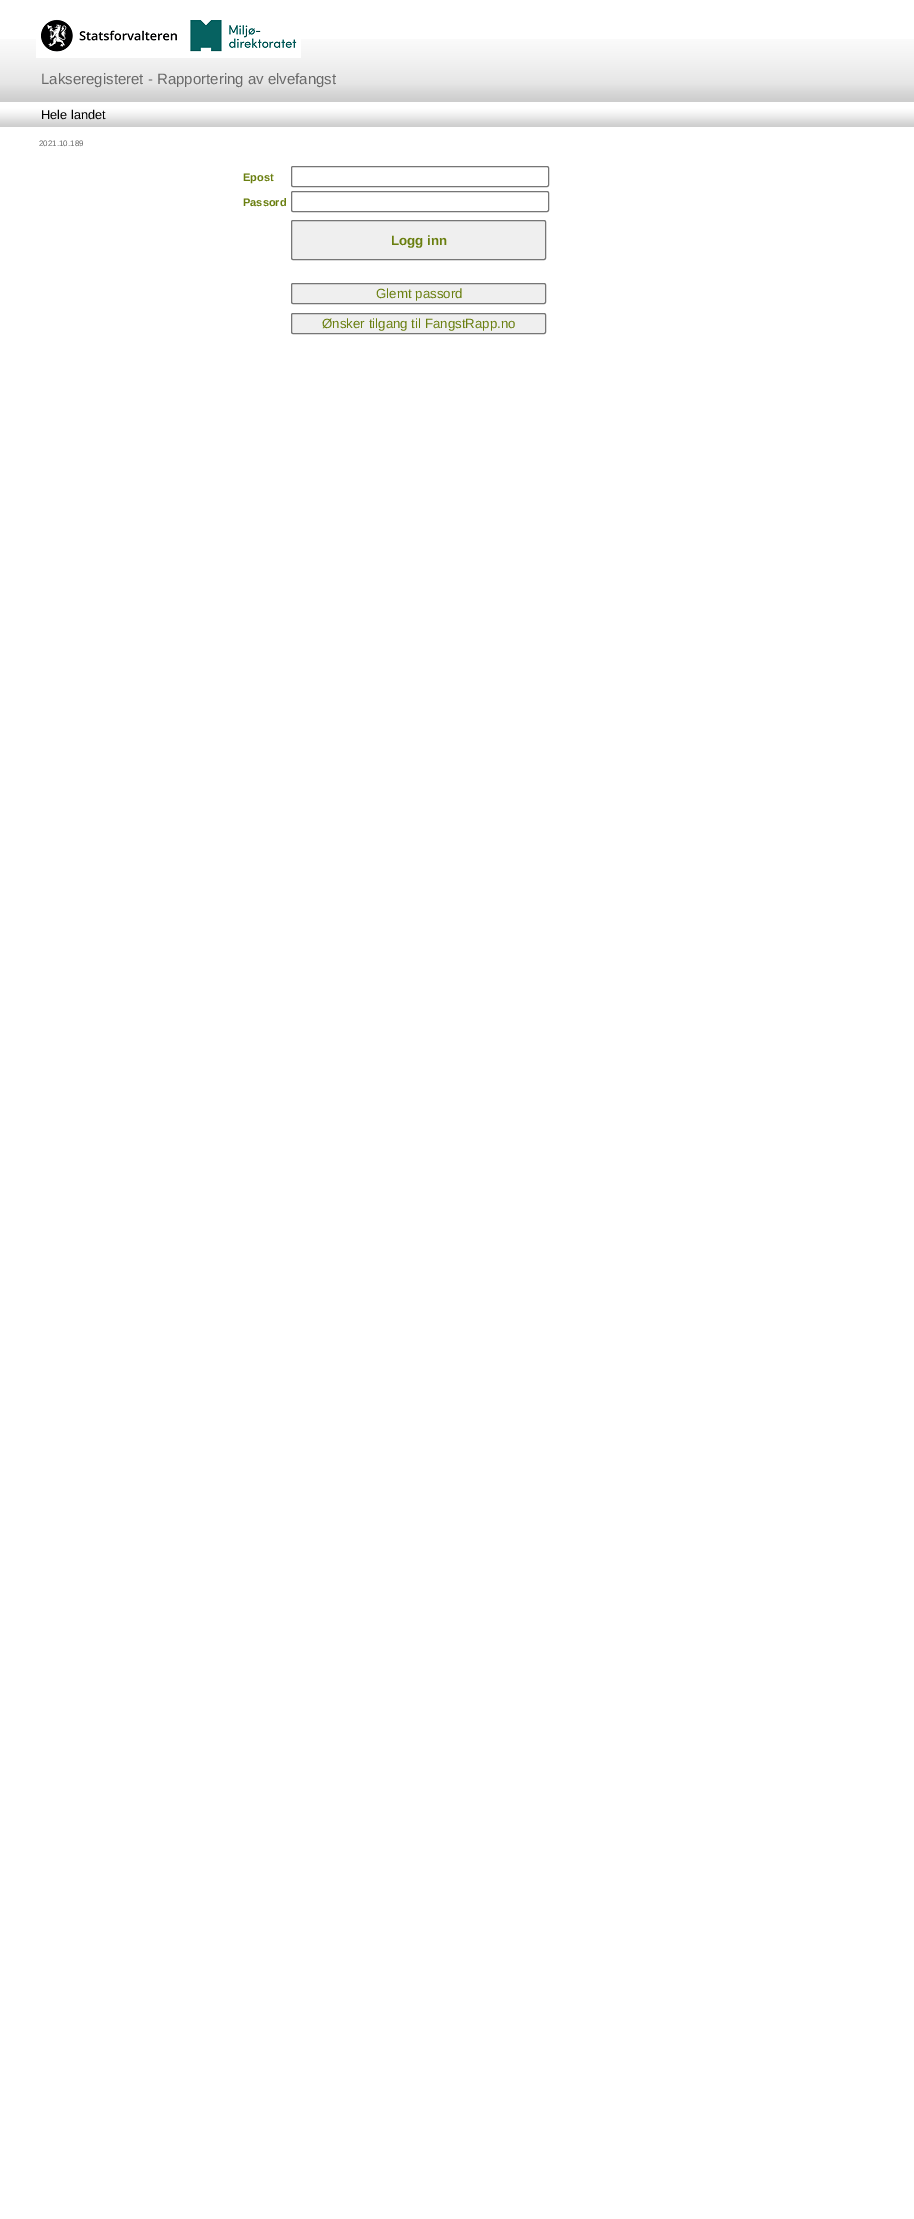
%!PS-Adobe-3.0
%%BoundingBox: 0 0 914 2219
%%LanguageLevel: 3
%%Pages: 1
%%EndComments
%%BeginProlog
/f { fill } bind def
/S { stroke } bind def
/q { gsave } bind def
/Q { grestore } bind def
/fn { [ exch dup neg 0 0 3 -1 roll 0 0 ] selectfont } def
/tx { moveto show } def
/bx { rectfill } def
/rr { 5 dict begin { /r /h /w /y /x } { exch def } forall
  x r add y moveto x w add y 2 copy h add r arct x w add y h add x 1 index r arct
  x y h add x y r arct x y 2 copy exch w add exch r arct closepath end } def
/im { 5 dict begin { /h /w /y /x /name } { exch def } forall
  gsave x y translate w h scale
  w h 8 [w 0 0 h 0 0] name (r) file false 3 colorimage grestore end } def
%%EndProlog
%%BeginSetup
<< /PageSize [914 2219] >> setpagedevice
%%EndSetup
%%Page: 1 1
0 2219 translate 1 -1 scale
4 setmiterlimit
1 setgray
0 0 914 2219 bx
(image0.raw) 0 39 914 88 im
(image1.raw) 36 19 265 39 im
/LiberationSans-Regular 15 fn
0.412 setgray
(Lakseregisteret - Rapportering av elvefangst) 41 84 tx
/LiberationSans-Regular 12.75 fn
0 setgray
(Hele landet) 41 119 tx
/LiberationSans-Regular 8 fn
0.412 setgray
(2021.10.189) 39 146 tx
/LiberationSans-Bold 11 fn
0.416 0.498 0.063 setrgbcolor
(Epost) 243 181 tx
0.463 setgray
291.5 166.5 257 20 1.5 rr S
0.416 0.498 0.063 setrgbcolor
(Passord) 243 206 tx
0.463 setgray
291.5 191.5 257 20 1.5 rr S
0.937 setgray
291.5 220.5 254 39 1.5 rr q f Q
0.463 setgray
S
/LiberationSans-Bold 13.3 fn
0.416 0.498 0.063 setrgbcolor
(Logg inn) 391 245 tx
0.937 setgray
291.5 283.5 254 20 1.5 rr q f Q
0.463 setgray
S
/LiberationSans-Regular 13.3 fn
0.416 0.498 0.063 setrgbcolor
(Glemt passord) 376 298 tx
0.937 setgray
291.5 313.5 254 20 1.5 rr q f Q
0.463 setgray
S
0.416 0.498 0.063 setrgbcolor
(Ønsker tilgang til FangstRapp.no) 322 328 tx
showpage
%%EOF
